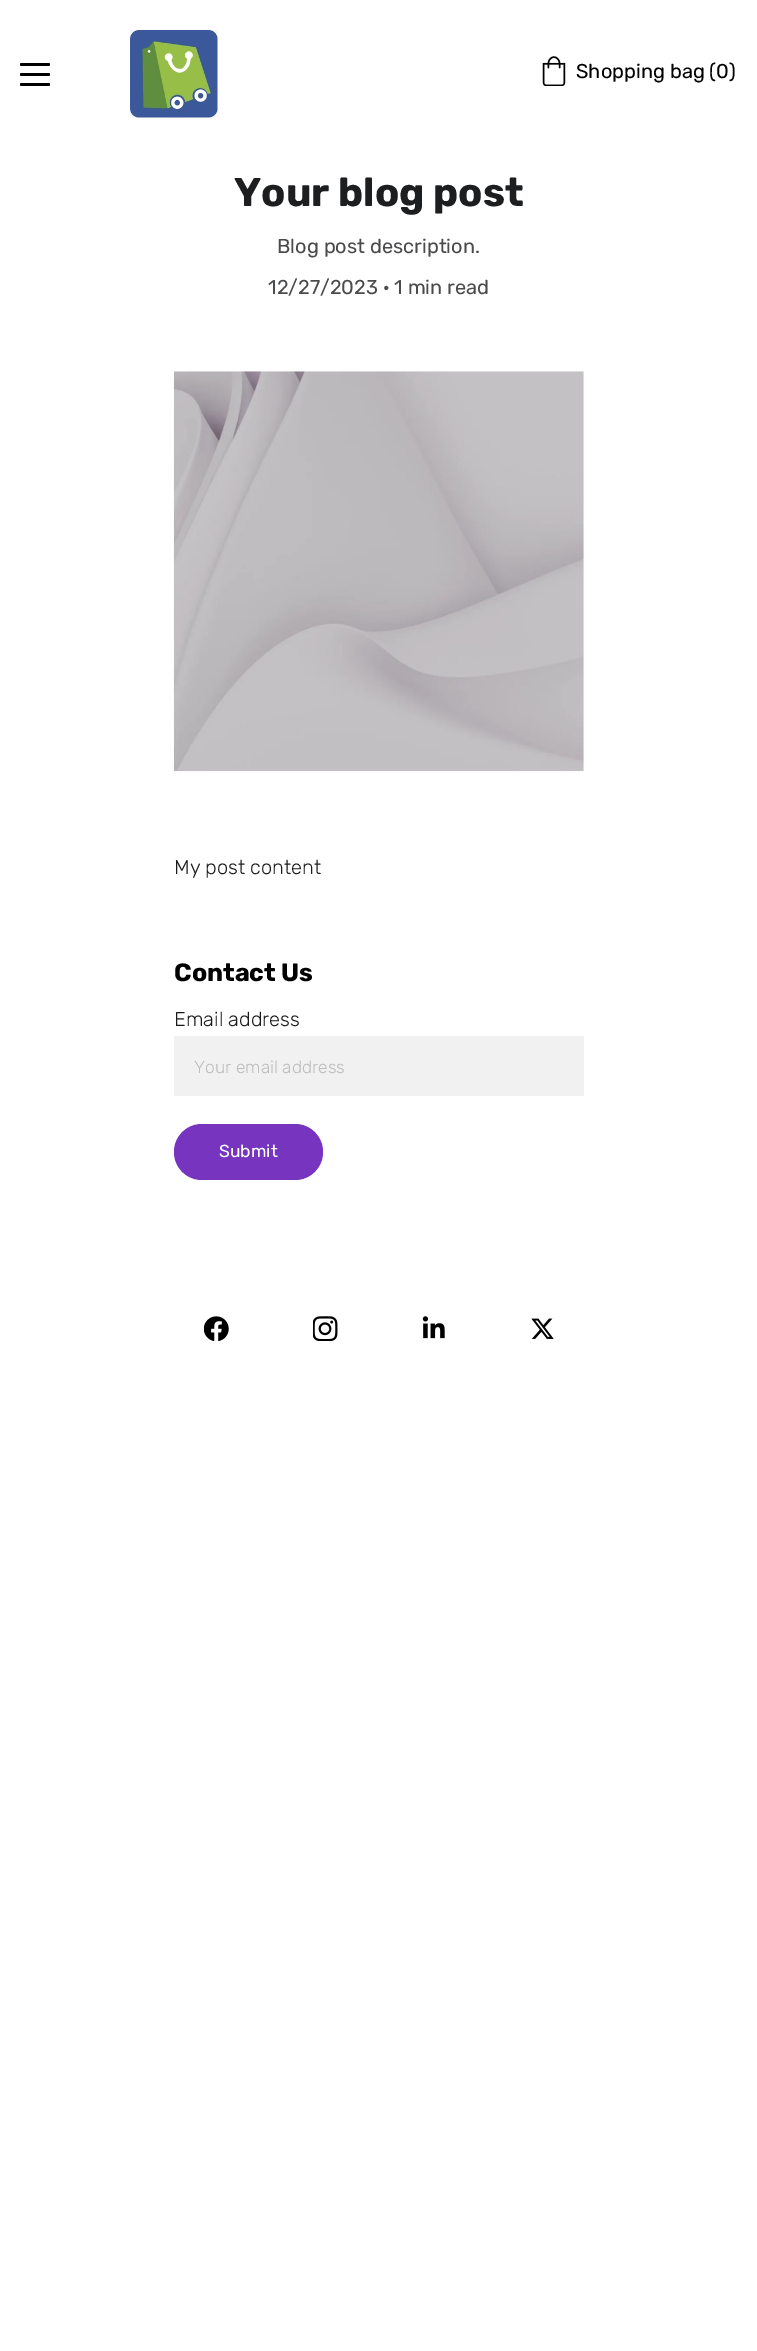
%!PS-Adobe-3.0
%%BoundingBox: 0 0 757 2351
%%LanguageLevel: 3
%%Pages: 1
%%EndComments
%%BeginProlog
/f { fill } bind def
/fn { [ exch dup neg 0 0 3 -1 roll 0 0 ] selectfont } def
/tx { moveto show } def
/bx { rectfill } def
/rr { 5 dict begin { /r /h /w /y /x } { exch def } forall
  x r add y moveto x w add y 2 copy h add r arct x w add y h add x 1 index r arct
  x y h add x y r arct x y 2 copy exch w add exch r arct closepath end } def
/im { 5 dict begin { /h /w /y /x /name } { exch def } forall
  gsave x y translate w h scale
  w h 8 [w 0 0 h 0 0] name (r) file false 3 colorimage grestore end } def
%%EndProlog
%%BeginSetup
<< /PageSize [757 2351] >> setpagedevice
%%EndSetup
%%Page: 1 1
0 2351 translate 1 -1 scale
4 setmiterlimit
1 setgray
0 0 757 2351 bx
0 setgray
20 63 30 3 1.5 rr f
20 73 30 3 1.5 rr f
20 83 30 3 1.5 rr f
(image0.raw) 130 30 88 88 im
(image1.raw) 542 56 24 30 im
/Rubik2-Light 20 fn
(Shopping bag \(0\)) 576 78 tx
/Rubik-Light 40 fn
0.114 0.118 0.125 setrgbcolor
(Your blog post) 234 206 tx
/Rubik2-Light 20 fn
0.29 0.294 0.302 setrgbcolor
(Blog post description.) 277 253 tx
(12/27/2023 · 1 min read) 268 294 tx
(image2.raw) 173 371 411 401 im
/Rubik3-Light 20 fn
0.102 setgray
(My post content) 174 874 tx
/Rubik-Light 25 fn
0 setgray
(Contact Us) 174 981 tx
/Rubik3-Light 20 fn
0.102 setgray
(Email address) 174 1026 tx
0.945 setgray
174 1036 410 60 bx
/Rubik3-Light 17.5 fn
0.741 setgray
(Your email address) 194 1073 tx
0.463 0.204 0.749 setrgbcolor
174 1124 149 56 28 rr f
/Rubik2-Light 17.5 fn
1 setgray
(Submit) 219 1157 tx
(image3.raw) 204 1316 25 25 im
(image4.raw) 313 1316 25 25 im
(image5.raw) 422 1316 23 23 im
(image6.raw) 531 1318 23 21 im
showpage
%%EOF
